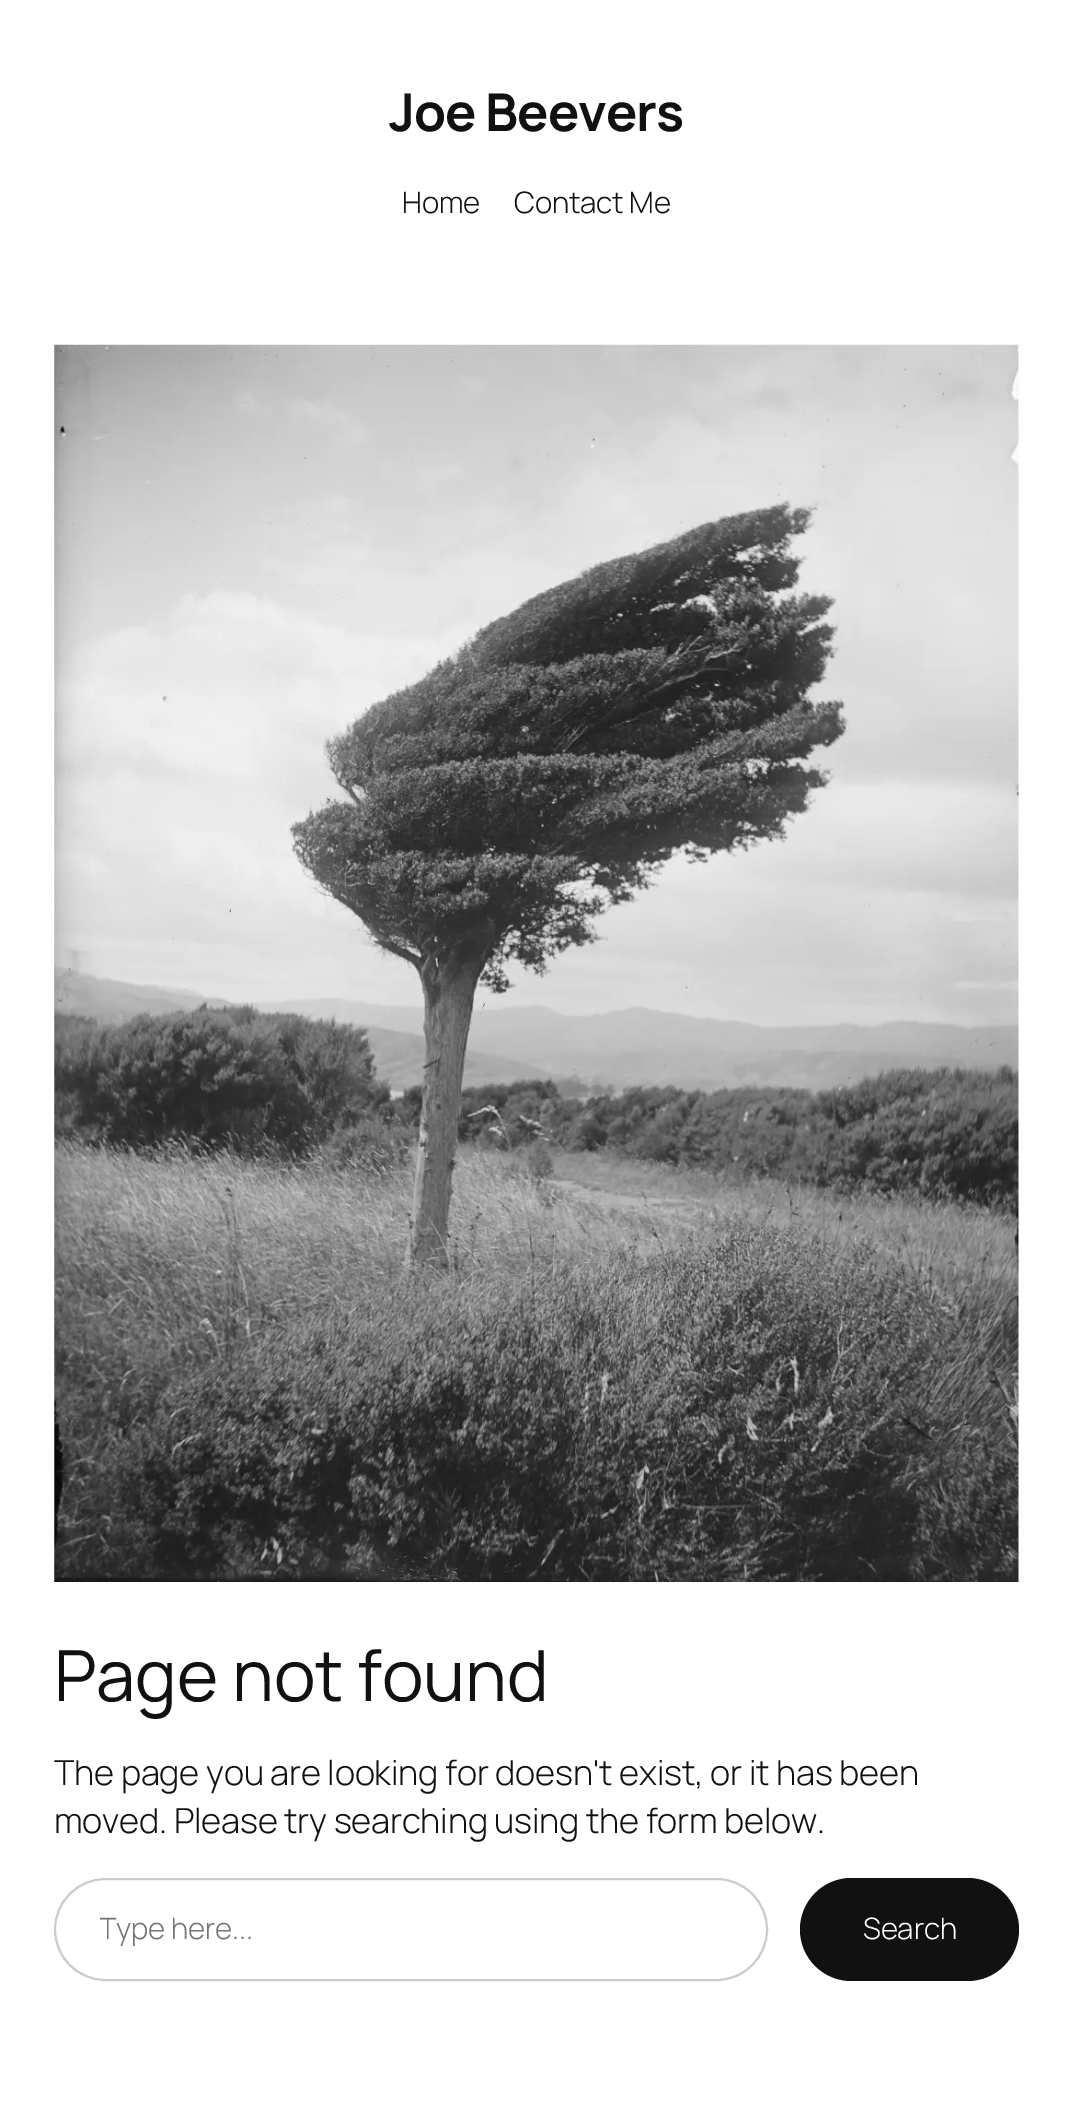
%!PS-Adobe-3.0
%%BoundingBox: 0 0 1072 2120
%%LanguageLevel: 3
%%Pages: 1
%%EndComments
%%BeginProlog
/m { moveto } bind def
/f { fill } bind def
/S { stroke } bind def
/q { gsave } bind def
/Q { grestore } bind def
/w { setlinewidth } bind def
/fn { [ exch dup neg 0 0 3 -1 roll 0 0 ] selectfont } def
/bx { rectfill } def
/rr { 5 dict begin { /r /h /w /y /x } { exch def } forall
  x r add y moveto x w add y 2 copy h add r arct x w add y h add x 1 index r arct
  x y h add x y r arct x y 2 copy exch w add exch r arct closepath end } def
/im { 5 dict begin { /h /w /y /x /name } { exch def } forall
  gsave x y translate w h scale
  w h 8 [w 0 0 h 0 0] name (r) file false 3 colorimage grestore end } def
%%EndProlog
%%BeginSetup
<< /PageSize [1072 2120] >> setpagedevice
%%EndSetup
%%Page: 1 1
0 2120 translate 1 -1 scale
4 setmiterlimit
1 setgray
0 0 1072 2120 bx
/Manrope-Bold 52 fn
0.067 setgray
389 131 m -0.9 0 (Joe Beevers) ashow
/Manrope-Light 29.5 fn
402 213 m -0.18 0 (Home) ashow
514 213 m -0.18 0 (Contact Me) ashow
(image0.raw) 54 344 965 1238 im
/Manrope-Regular 70.5 fn
54 1701 m -0.18 0 (Page not found) ashow
/Manrope-Light 34.5 fn
54 1785 m -0.18 0 (The page you are looking for doesn't exist, or it has been) ashow
54 1833 m -0.18 0 (moved. Please try searching using the form below.) ashow
0.8 setgray
2 w
55 1879 712 101 50.5 rr S
q
100 1908 595 40 rectclip
/Manrope-Light 29.5 fn
0.459 setgray
99 1939 m -0.18 0 (Type here...) ashow
Q
0.067 setgray
800 1878 219 103 51.5 rr f
/Manrope-Light 29.5 fn
1 setgray
863 1939 m -0.18 0 (Search) ashow
showpage
%%EOF
